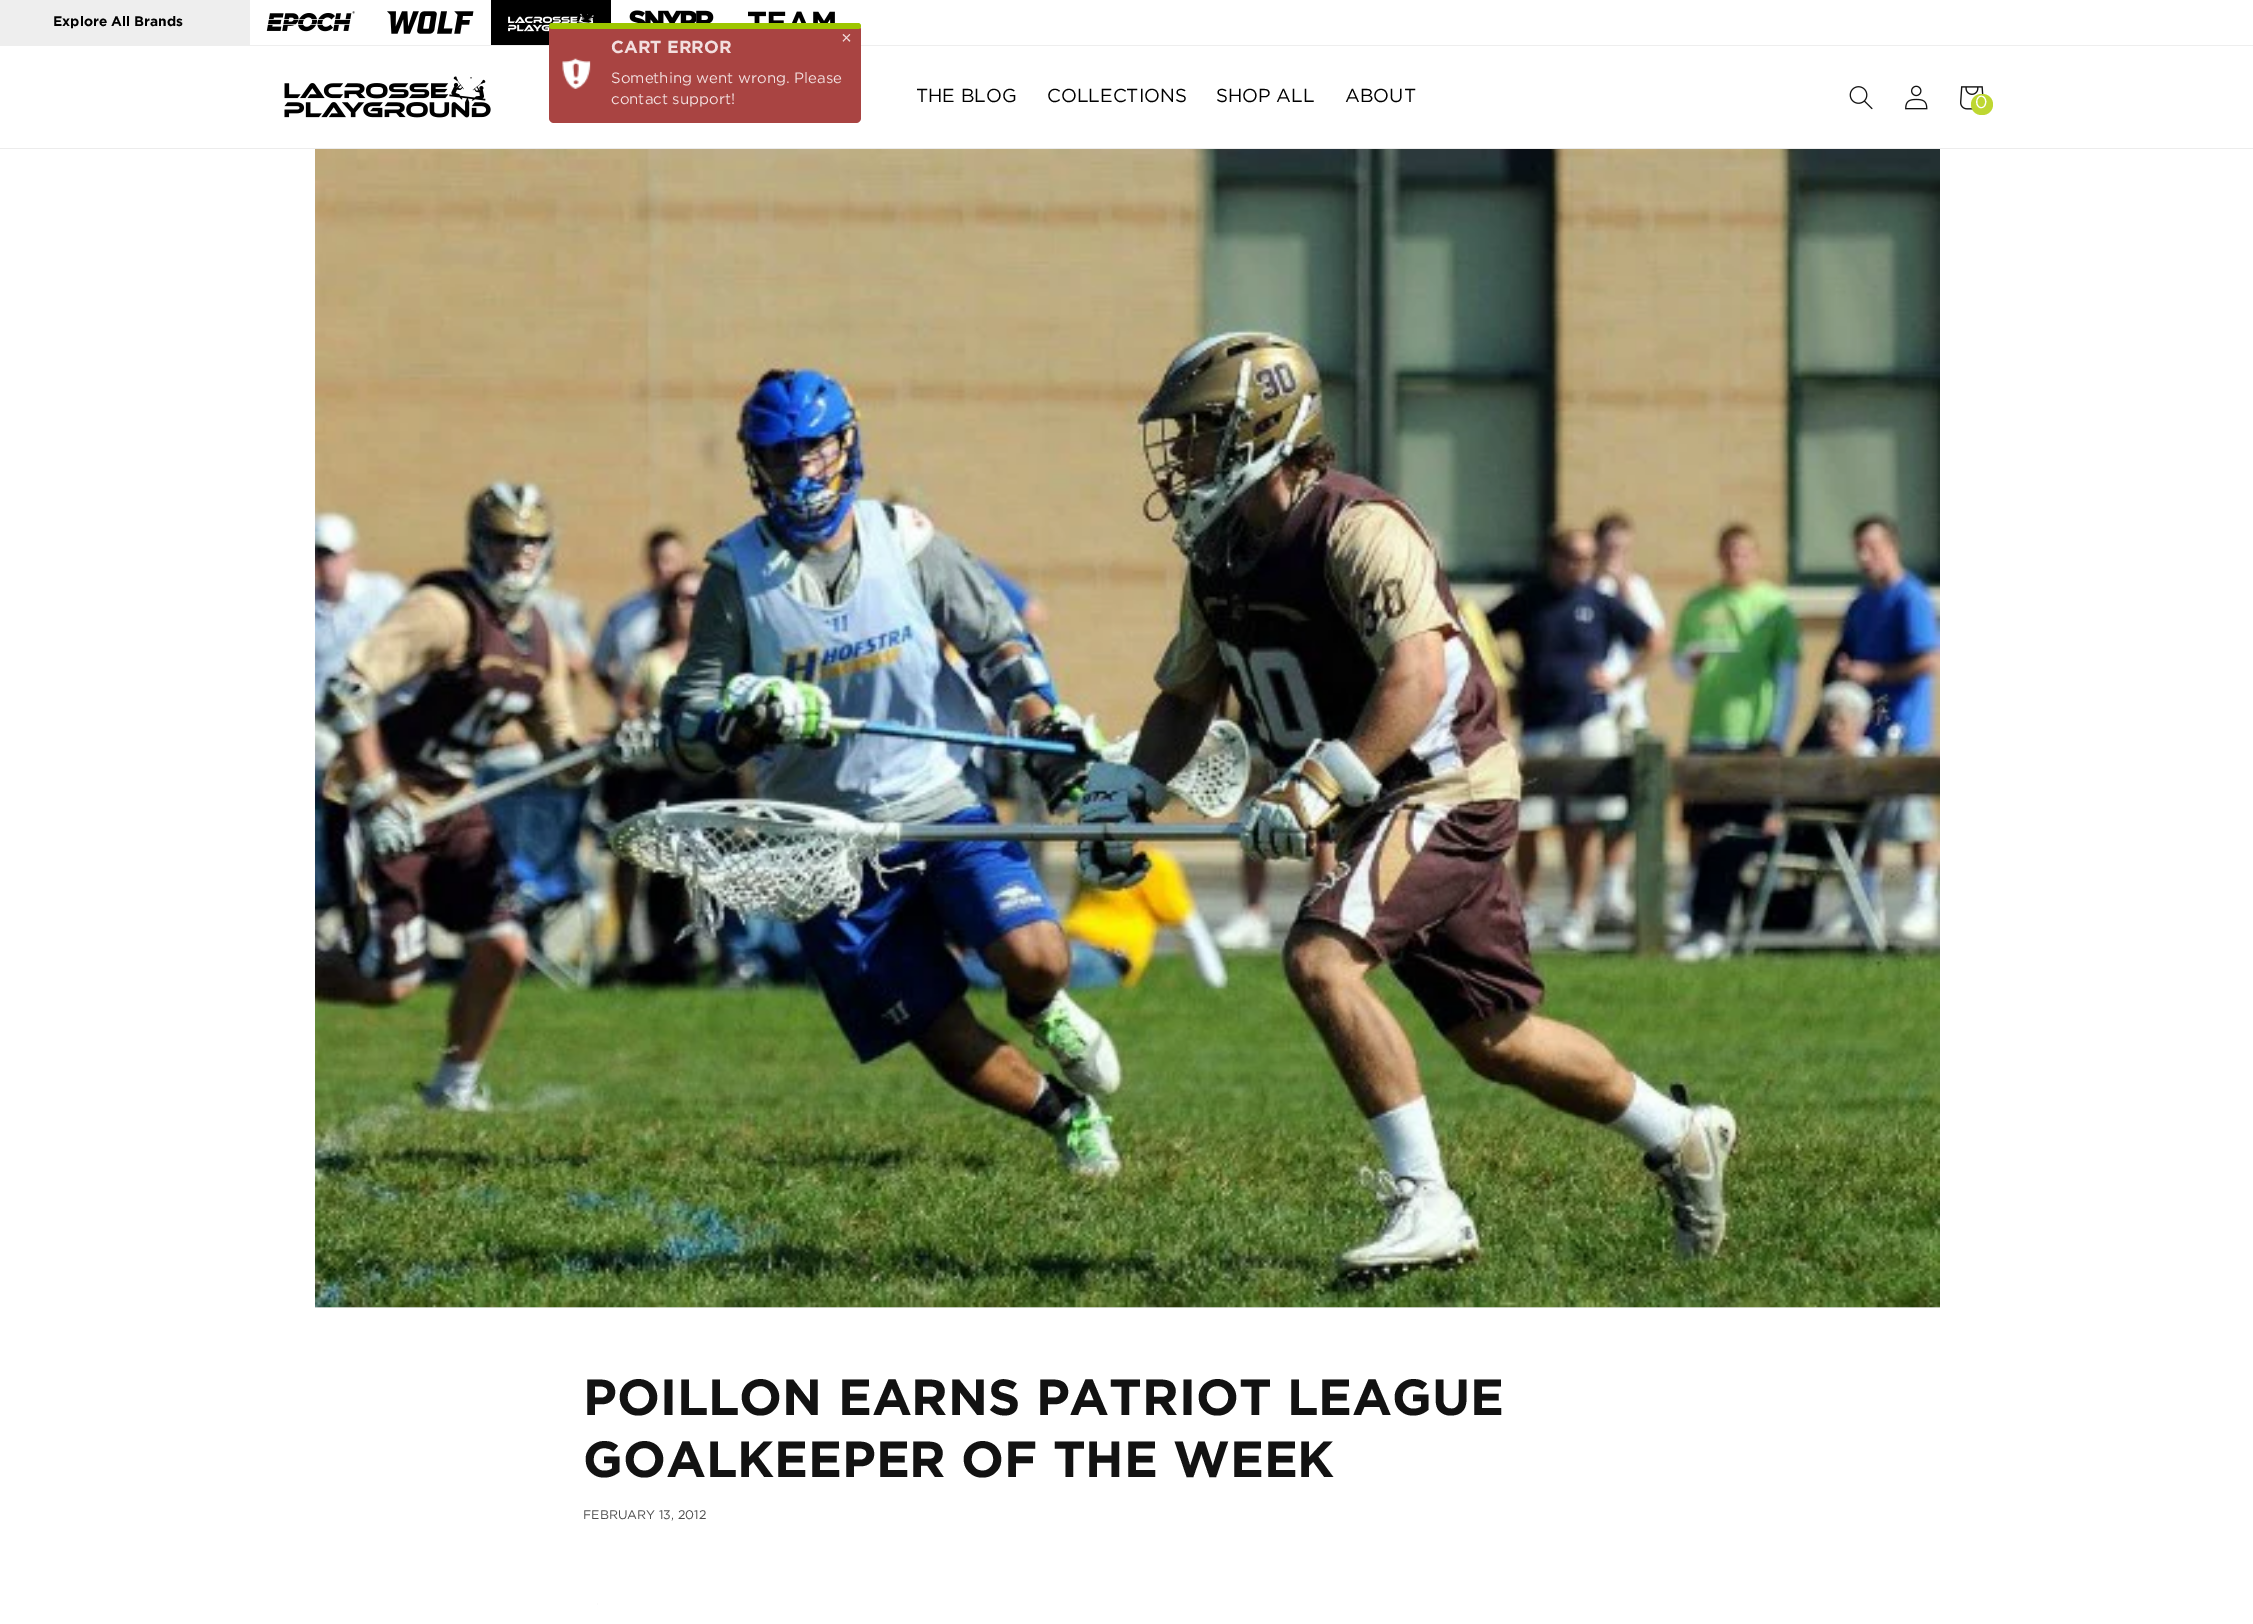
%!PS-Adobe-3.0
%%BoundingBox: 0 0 2253 1624
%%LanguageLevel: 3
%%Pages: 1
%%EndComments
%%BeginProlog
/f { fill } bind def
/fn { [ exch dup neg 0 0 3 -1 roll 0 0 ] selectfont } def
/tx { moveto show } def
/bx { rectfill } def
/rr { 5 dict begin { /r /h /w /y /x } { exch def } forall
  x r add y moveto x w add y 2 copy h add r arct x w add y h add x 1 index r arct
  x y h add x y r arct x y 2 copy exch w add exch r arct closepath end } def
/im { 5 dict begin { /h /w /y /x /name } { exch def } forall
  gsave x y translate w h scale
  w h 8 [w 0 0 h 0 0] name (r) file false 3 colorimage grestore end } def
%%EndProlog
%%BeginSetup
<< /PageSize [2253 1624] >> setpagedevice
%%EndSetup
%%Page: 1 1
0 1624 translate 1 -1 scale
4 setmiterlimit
1 setgray
0 0 2253 1624 bx
0.933 setgray
0 45 2253 1 bx
0 0 250 45 bx
/Gotham-Bold 13.75 fn
0 setgray
(Explore All Brands) 53 26 tx
(image0.raw) 266 11 89 21 im
(image1.raw) 387 11 87 23 im
491 0 120 45 bx
(image2.raw) 508 13 86 19 im
(image3.raw) 629 10 85 13 im
(image4.raw) 748 11 87 12 im
0.663 0.267 0.259 setrgbcolor
549 25 312 98 5 rr f
(image5.raw) 562 58 29 31 im
0.62 0.776 0 setrgbcolor
549 23 312 6 3 rr f
/Gotham-Regular 17.5 fn
0.949 0.871 0.871 setrgbcolor
(×) 841 44 tx
/Gotham-Bold 17.5 fn
(CART ERROR) 611 53 tx
/Gotham-Regular 15 fn
(Something went wrong. Please) 611 83 tx
(contact support!) 611 104 tx
0.925 setgray
0 148 2253 1 bx
(image6.raw) 284 76 207 42 im
/Gotham-Regular 18.75 fn
0 setgray
(THE BLOG) 916 102 tx
(COLLECTIONS) 1047 102 tx
(SHOP ALL) 1216 102 tx
(ABOUT) 1345 102 tx
(image7.raw) 1849 86 24 24 im
(image8.raw) 1905 85 23 25 im
(image9.raw) 1960 86 24 24 im
0.745 0.843 0.192 setrgbcolor
1971 94 22 21 10.5 rr f
/Gotham-Regular 17.5 fn
1 setgray
(0) 1975 108 tx
0.91 setgray
315 1307 1625 1 bx
(image10.raw) 315 149 1625 1159 im
/Gotham-Bold 50.6 fn
0.071 setgray
(POILLON EARNS PATRIOT LEAGUE) 583 1415 tx
(GOALKEEPER OF THE WEEK) 583 1477 tx
/Gotham-Regular 12.5 fn
0.302 setgray
(FEBRUARY 13, 2012) 583 1519 tx
0.98 setgray
597 1603 1 2 bx
showpage
%%EOF
